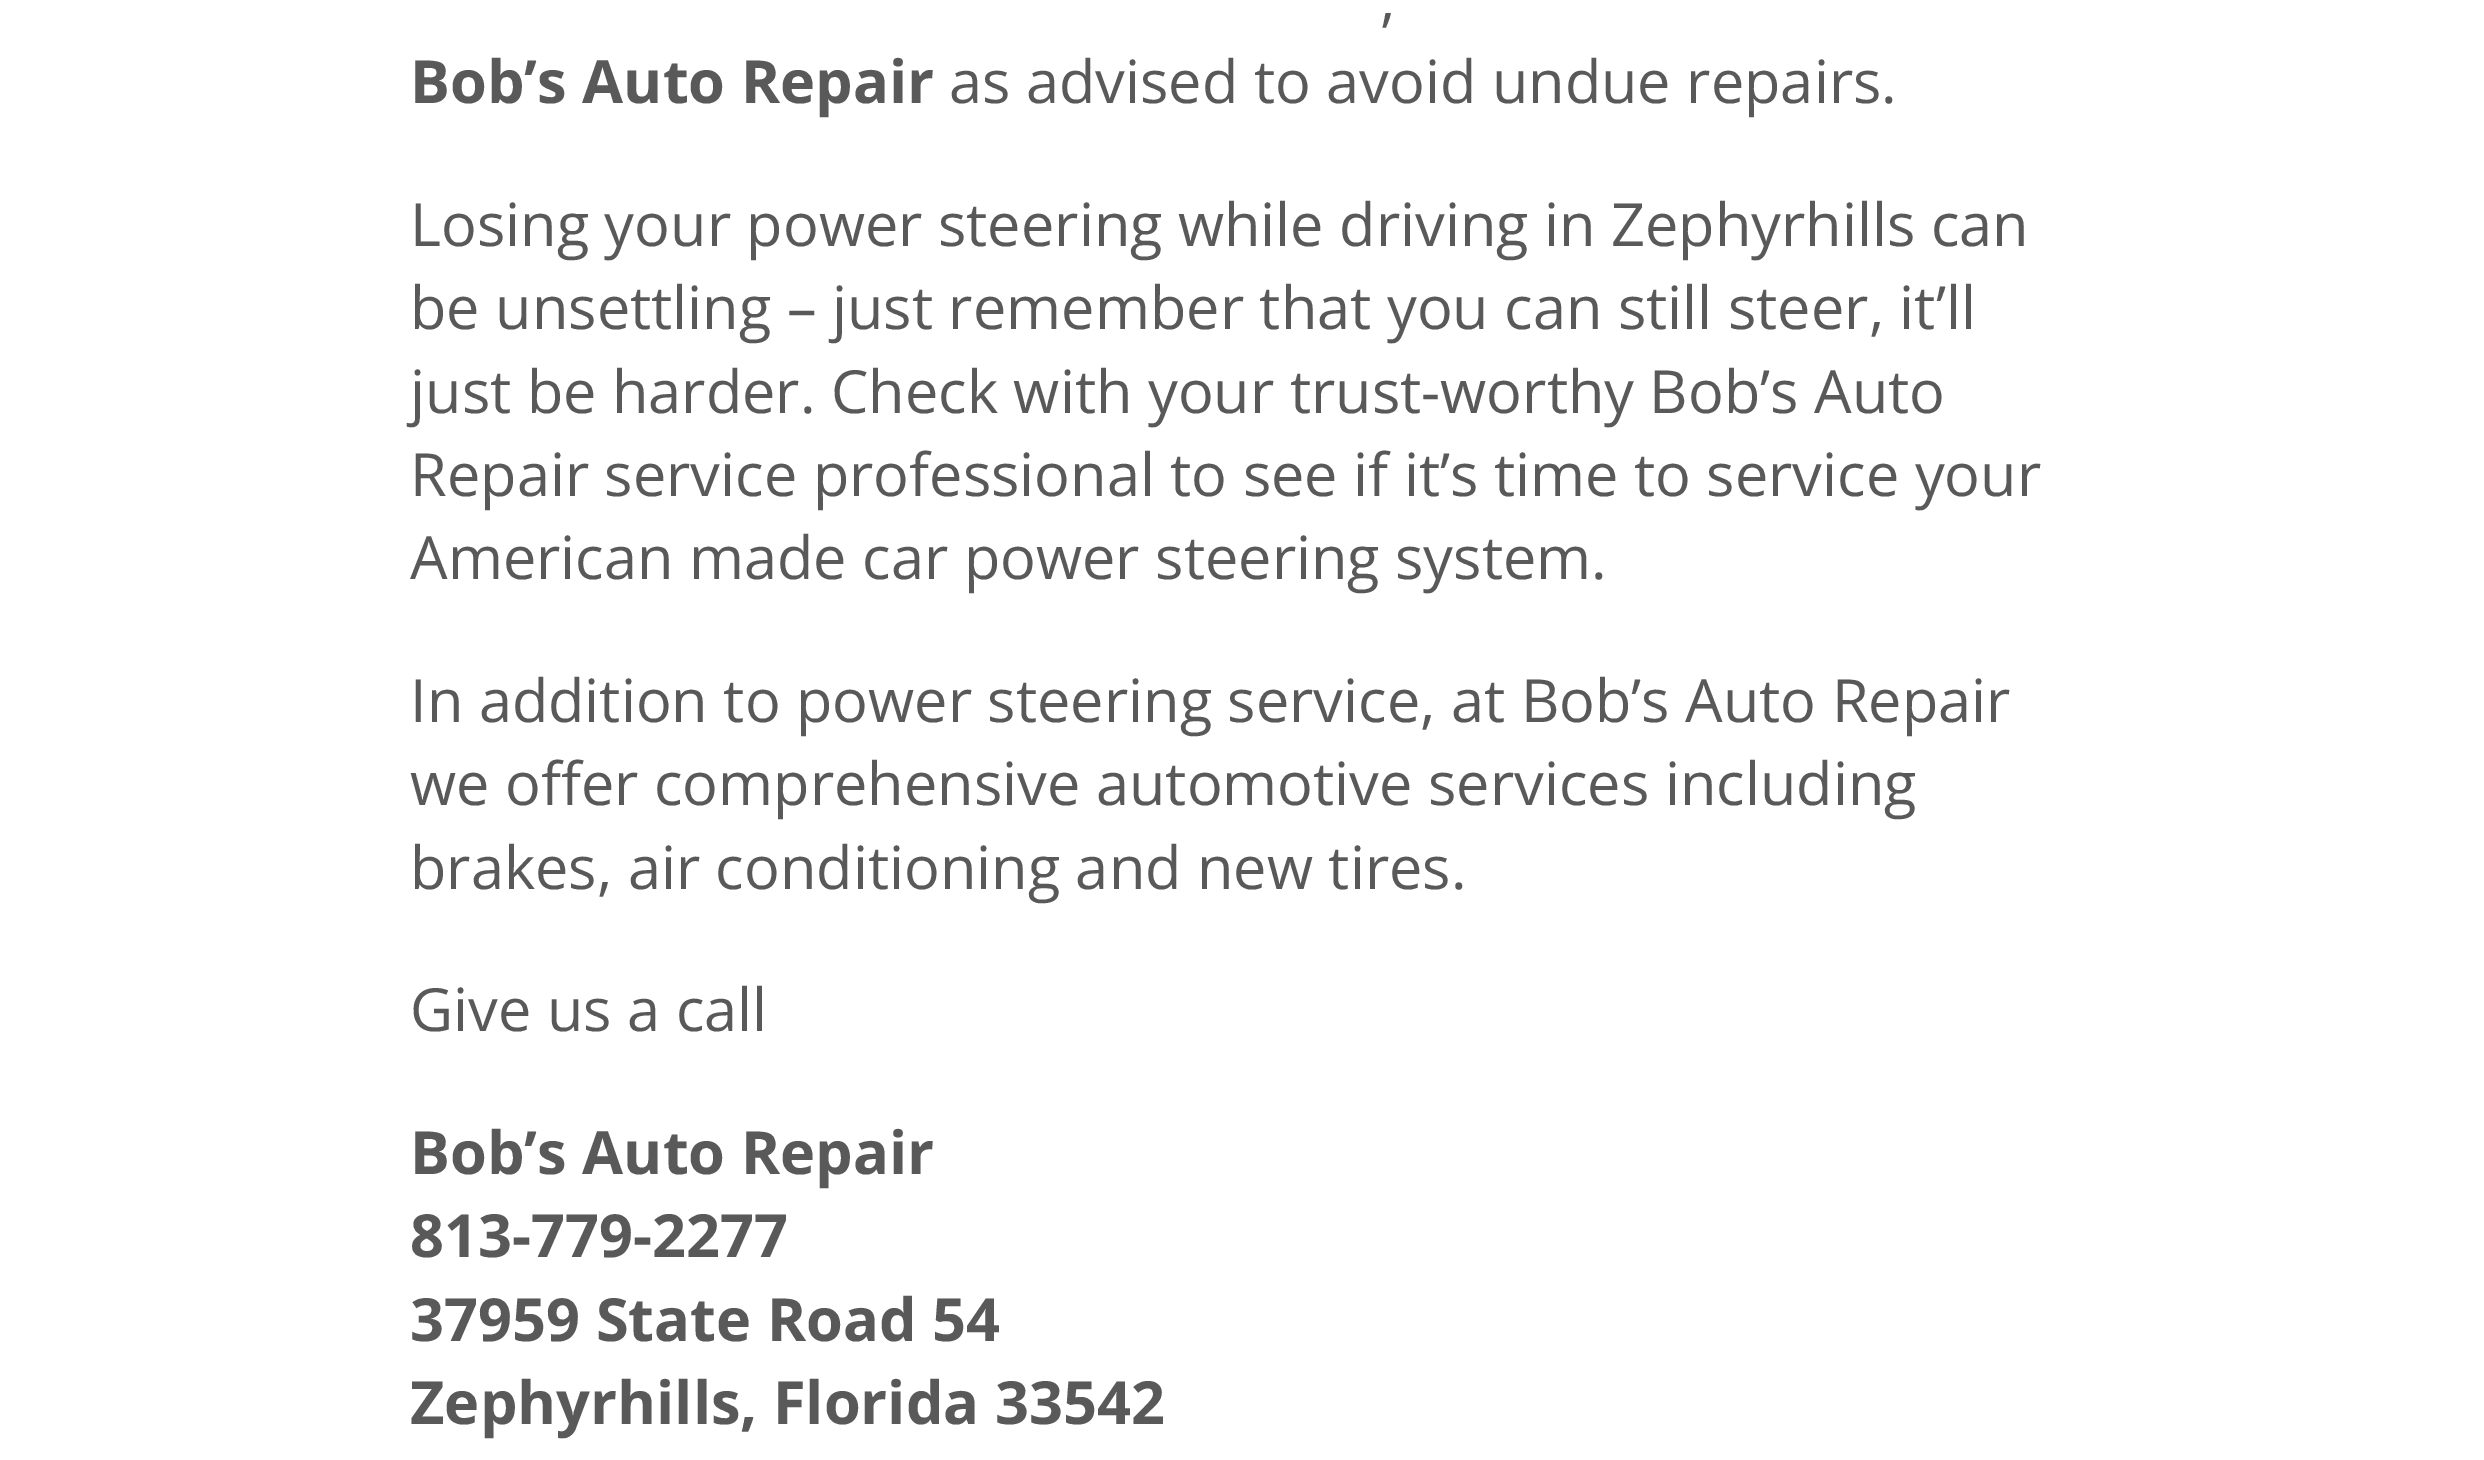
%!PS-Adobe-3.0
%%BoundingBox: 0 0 2484 1460
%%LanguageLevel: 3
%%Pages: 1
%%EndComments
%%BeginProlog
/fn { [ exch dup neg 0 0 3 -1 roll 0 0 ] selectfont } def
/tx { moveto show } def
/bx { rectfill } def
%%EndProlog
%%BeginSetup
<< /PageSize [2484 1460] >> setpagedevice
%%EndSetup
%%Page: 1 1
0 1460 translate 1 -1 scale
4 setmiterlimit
1 setgray
0 0 2484 1460 bx
/OpenSans-Regular 59.5 fn
0.349 setgray
(,) 1380 20 tx
/OpenSans-Bold 59.5 fn
(Bob’s Auto Repair) 410 103 tx
/OpenSans-Regular 59.5 fn
(as advised to avoid undue repairs.) 949 103 tx
(Losing your power steering while driving in Zephyrhills can) 410 246 tx
(be unsettling – just remember that you can still steer, it’ll) 410 329 tx
(just be harder. Check with your trust-worthy Bob’s Auto) 410 413 tx
(Repair service professional to see if it’s time to service your) 410 496 tx
(American made car power steering system.) 410 579 tx
(In addition to power steering service, at Bob’s Auto Repair) 410 722 tx
(we offer comprehensive automotive services including) 410 805 tx
(brakes, air conditioning and new tires.) 410 889 tx
(Give us a call) 410 1031 tx
/OpenSans-Bold 59.5 fn
(Bob’s Auto Repair) 410 1174 tx
(813-779-2277) 410 1257 tx
(37959 State Road 54) 410 1341 tx
(Zephyrhills, Florida 33542) 410 1424 tx
showpage
%%EOF
